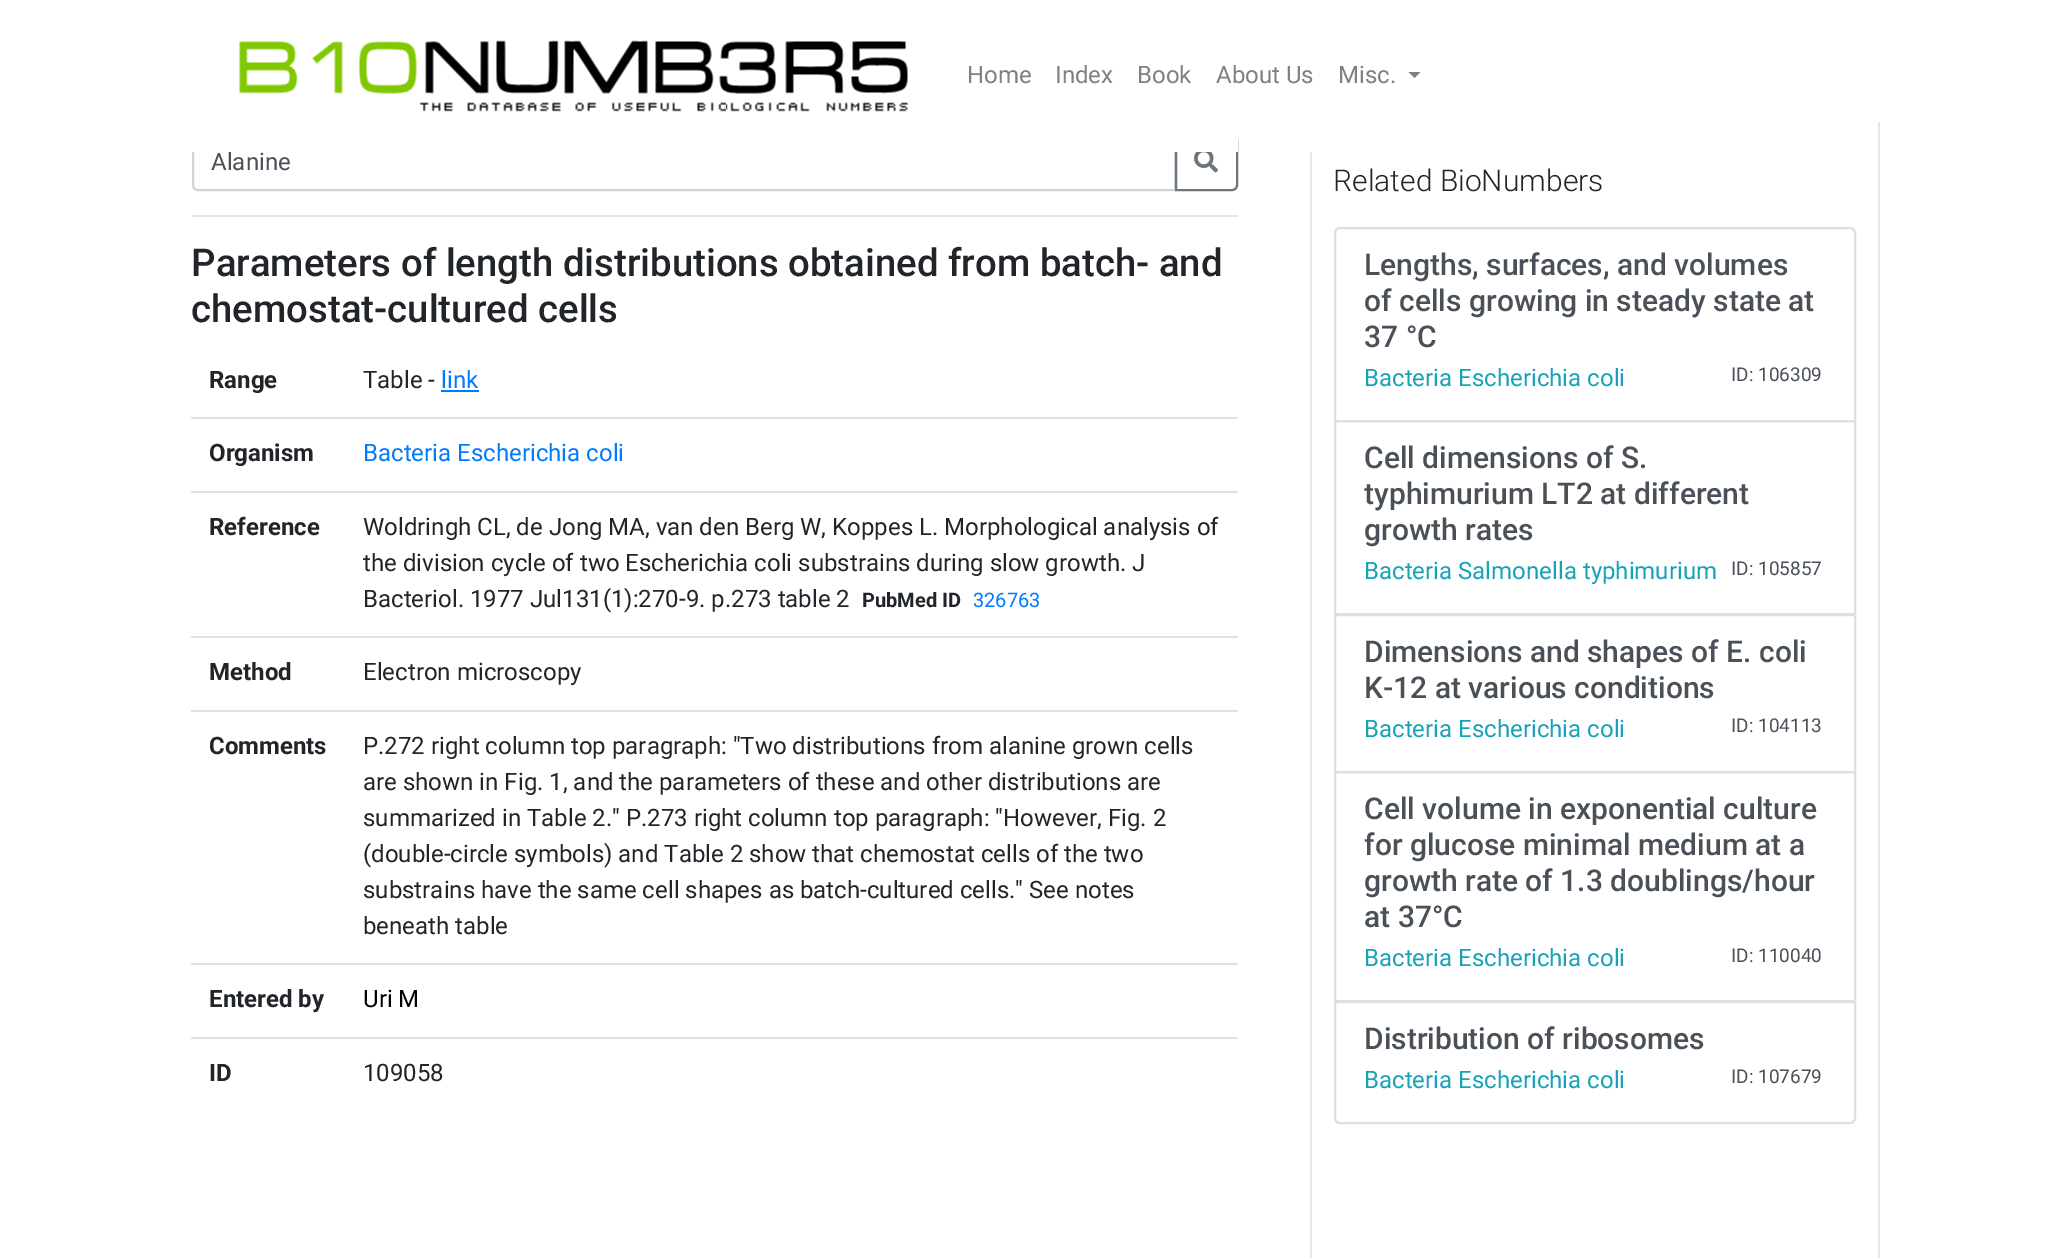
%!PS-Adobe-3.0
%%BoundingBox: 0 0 2047 1258
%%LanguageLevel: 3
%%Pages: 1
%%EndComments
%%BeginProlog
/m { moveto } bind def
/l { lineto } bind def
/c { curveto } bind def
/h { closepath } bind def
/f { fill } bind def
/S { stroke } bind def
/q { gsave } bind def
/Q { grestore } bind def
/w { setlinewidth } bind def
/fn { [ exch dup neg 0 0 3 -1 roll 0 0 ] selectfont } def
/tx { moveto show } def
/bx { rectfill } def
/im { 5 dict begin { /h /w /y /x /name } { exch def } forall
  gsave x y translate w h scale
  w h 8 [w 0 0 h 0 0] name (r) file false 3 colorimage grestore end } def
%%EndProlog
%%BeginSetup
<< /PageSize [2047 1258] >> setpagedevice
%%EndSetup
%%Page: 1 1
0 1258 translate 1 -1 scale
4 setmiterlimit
1 setgray
0 0 2047 1258 bx
0.808 0.831 0.855 setrgbcolor
2 w
198 135 m 1175 135 l 1175 190 l 198 190 l 195 190 193 188 193 185 c 193 140 l 193 137 195 135 198 135 c h S
0.424 0.459 0.49 setrgbcolor
1176 135 m 1232 135 l 1235 135 1237 137 1237 140 c 1237 185 l 1237 188 1235 190 1232 190 c 1176 190 l h S
1 setgray
192 134 1046 18 bx
(image0.raw) 239 40 669 72 im
/Roboto-Regular 24 fn
0.502 setgray
(Home) 967 83 tx
(Index) 1055 83 tx
(Book) 1137 83 tx
(About Us) 1216 83 tx
(Misc.) 1338 83 tx
1408.5 72 m 1420.5 72 l 1414.5 78 l h f
0.286 0.314 0.341 setrgbcolor
(Alanine) 211 170 tx
(image1.raw) 1194 152 24 21 im
0.902 setgray
192 215 1046 2 bx
/Roboto-Medium 38.4 fn
0.129 0.145 0.161 setrgbcolor
(Parameters of length distributions obtained from batch- and) 191 276 tx
(chemostat-cultured cells) 191 322 tx
/Roboto-Bold 24 fn
(Range) 209 388 tx
/Roboto-Regular 24 fn
(Table -) 363 388 tx
0 0.482 1 setrgbcolor
(link) 441 388 tx
441 390 38 2 bx
/Roboto-Bold 24 fn
0.129 0.145 0.161 setrgbcolor
(Organism) 209 461 tx
0.871 0.886 0.902 setrgbcolor
191 417 1047 2 bx
/Roboto-Regular 24 fn
0 0.482 1 setrgbcolor
(Bacteria Escherichia coli) 363 461 tx
/Roboto-Bold 24 fn
0.129 0.145 0.161 setrgbcolor
(Reference) 209 535 tx
0.871 0.886 0.902 setrgbcolor
191 491 1047 2 bx
/Roboto-Regular 24 fn
0.129 0.145 0.161 setrgbcolor
(Woldringh CL, de Jong MA, van den Berg W, Koppes L. Morphological analysis of) 363 535 tx
(the division cycle of two Escherichia coli substrains during slow growth. J) 363 571 tx
(Bacteriol. 1977 Jul131\(1\):270-9. p.273 table 2) 363 607 tx
/Roboto-Bold 20 fn
(PubMed ID) 862 607 tx
/Roboto-Regular 20 fn
0 0.482 1 setrgbcolor
(326763) 973 607 tx
/Roboto-Bold 24 fn
0.129 0.145 0.161 setrgbcolor
(Method) 209 680 tx
0.871 0.886 0.902 setrgbcolor
191 636 1047 2 bx
/Roboto-Regular 24 fn
0.129 0.145 0.161 setrgbcolor
(Electron microscopy) 363 680 tx
/Roboto-Bold 24 fn
(Comments) 209 754 tx
0.871 0.886 0.902 setrgbcolor
191 710 1047 2 bx
/Roboto-Regular 24 fn
0.129 0.145 0.161 setrgbcolor
(P.272 right column top paragraph: "Two distributions from alanine grown cells) 363 754 tx
(are shown in Fig. 1, and the parameters of these and other distributions are) 363 790 tx
(summarized in Table 2." P.273 right column top paragraph: "However, Fig. 2) 363 826 tx
(\(double-circle symbols\) and Table 2 show that chemostat cells of the two) 363 862 tx
(substrains have the same cell shapes as batch-cultured cells." See notes) 363 898 tx
(beneath table) 363 934 tx
/Roboto-Bold 24 fn
(Entered by) 209 1007 tx
0.871 0.886 0.902 setrgbcolor
191 963 1047 2 bx
/Roboto-Regular 24 fn
0 setgray
(Uri M) 363 1007 tx
/Roboto-Bold 24 fn
0.129 0.145 0.161 setrgbcolor
(ID) 209 1081 tx
0.871 0.886 0.902 setrgbcolor
191 1037 1047 2 bx
/Roboto-Regular 24 fn
0.129 0.145 0.161 setrgbcolor
(109058) 363 1081 tx
0.902 setgray
1878 122 2 1136 bx
1310 152 2 1106 bx
/Roboto-Light 30 fn
0.129 0.145 0.161 setrgbcolor
(Related BioNumbers) 1333 191 tx
0.875 setgray
1340 228 m 1850 228 l 1853 228 1855 230 1855 233 c 1855 421 l 1335 421 l 1335 233 l 1335 230 1337 228 1340 228 c h S
/Roboto-Medium 30 fn
0.286 0.314 0.341 setrgbcolor
(Lengths, surfaces, and volumes) 1364 275 tx
(of cells growing in steady state at) 1364 311 tx
(37 °C) 1364 347 tx
/Roboto-Regular 24 fn
0.09 0.635 0.722 setrgbcolor
(Bacteria Escherichia coli) 1364 386 tx
/Roboto-Regular 19 fn
0.286 0.314 0.341 setrgbcolor
(ID: 106309) 1731 381 tx
0.875 setgray
1335 421 520 193 rectstroke
/Roboto-Medium 30 fn
0.286 0.314 0.341 setrgbcolor
(Cell dimensions of S.) 1364 468 tx
(typhimurium LT2 at different) 1364 504 tx
(growth rates) 1364 540 tx
/Roboto-Regular 24 fn
0.09 0.635 0.722 setrgbcolor
(Bacteria Salmonella typhimurium) 1364 579 tx
/Roboto-Regular 19 fn
0.286 0.314 0.341 setrgbcolor
(ID: 105857) 1731 575 tx
0.875 setgray
1335 615 520 157 rectstroke
/Roboto-Medium 30 fn
0.286 0.314 0.341 setrgbcolor
(Dimensions and shapes of E. coli) 1364 662 tx
(K-12 at various conditions) 1364 698 tx
/Roboto-Regular 24 fn
0.09 0.635 0.722 setrgbcolor
(Bacteria Escherichia coli) 1364 737 tx
/Roboto-Regular 19 fn
0.286 0.314 0.341 setrgbcolor
(ID: 104113) 1731 732 tx
0.875 setgray
1335 772 520 229 rectstroke
/Roboto-Medium 30 fn
0.286 0.314 0.341 setrgbcolor
(Cell volume in exponential culture) 1364 819 tx
(for glucose minimal medium at a) 1364 855 tx
(growth rate of 1.3 doublings/hour) 1364 891 tx
(at 37°C) 1364 927 tx
/Roboto-Regular 24 fn
0.09 0.635 0.722 setrgbcolor
(Bacteria Escherichia coli) 1364 966 tx
/Roboto-Regular 19 fn
0.286 0.314 0.341 setrgbcolor
(ID: 110040) 1731 962 tx
1 setgray
1335 1002 m 1855 1002 l 1855 1118 l 1855 1121 1853 1123 1850 1123 c 1340 1123 l 1337 1123 1335 1121 1335 1118 c h q f Q
0.875 setgray
S
/Roboto-Medium 30 fn
0.286 0.314 0.341 setrgbcolor
(Distribution of ribosomes) 1364 1049 tx
/Roboto-Regular 24 fn
0.09 0.635 0.722 setrgbcolor
(Bacteria Escherichia coli) 1364 1088 tx
/Roboto-Regular 19 fn
0.286 0.314 0.341 setrgbcolor
(ID: 107679) 1731 1083 tx
showpage
%%EOF
